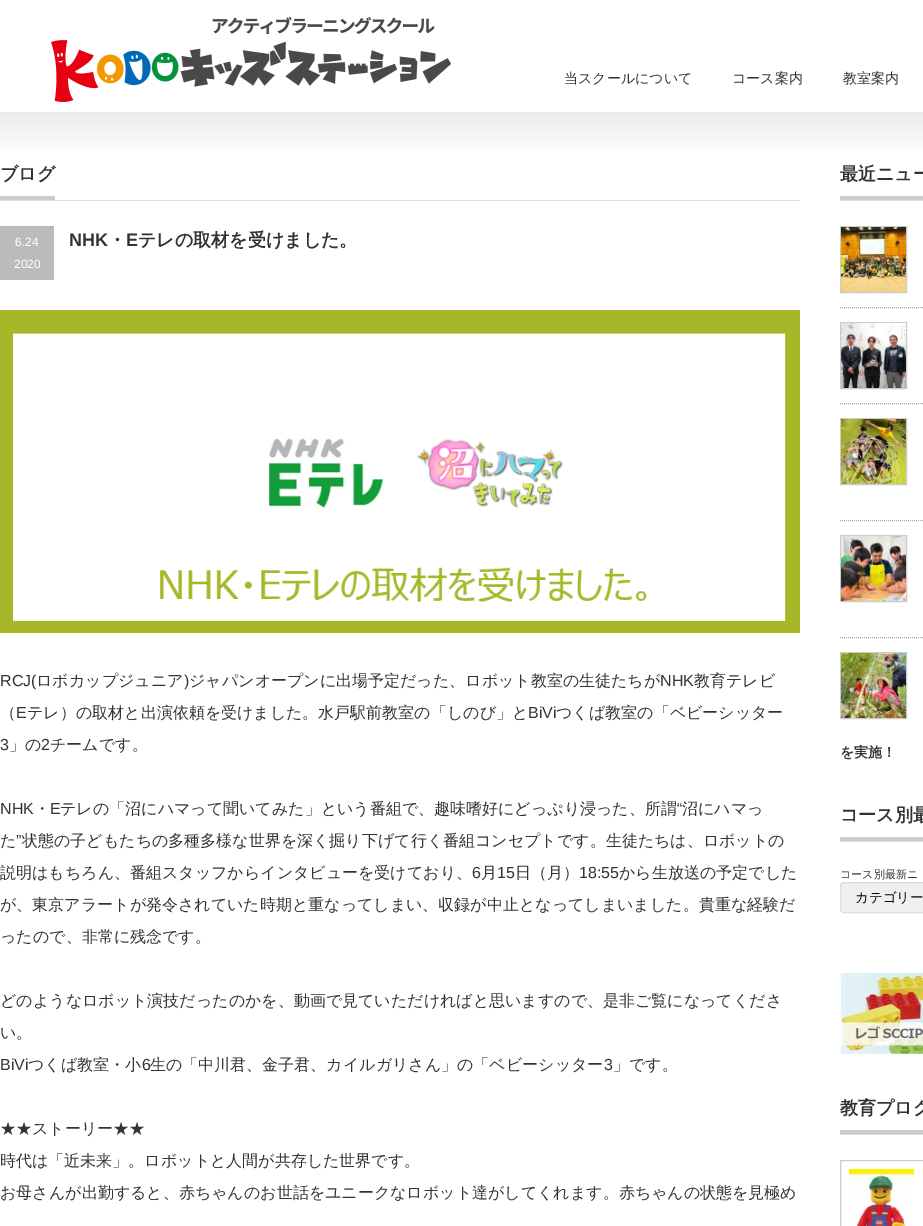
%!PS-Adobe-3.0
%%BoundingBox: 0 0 923 1226
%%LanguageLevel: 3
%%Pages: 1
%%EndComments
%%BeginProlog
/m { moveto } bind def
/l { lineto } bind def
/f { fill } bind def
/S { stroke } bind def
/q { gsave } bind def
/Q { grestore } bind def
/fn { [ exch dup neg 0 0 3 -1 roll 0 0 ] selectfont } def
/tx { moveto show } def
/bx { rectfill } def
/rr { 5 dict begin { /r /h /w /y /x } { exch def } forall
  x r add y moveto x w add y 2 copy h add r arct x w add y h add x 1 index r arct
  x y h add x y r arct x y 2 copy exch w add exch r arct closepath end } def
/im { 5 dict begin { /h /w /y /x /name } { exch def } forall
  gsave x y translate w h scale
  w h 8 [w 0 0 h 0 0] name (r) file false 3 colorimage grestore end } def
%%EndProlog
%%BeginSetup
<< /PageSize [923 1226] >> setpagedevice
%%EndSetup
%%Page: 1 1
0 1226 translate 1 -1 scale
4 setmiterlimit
1 setgray
0 0 923 1226 bx
(image0.raw) 51 17 400 85 im
/WenQuanYiZenHei-Medium 14 fn
0.2 setgray
(当スクールについて) 564 83 tx
(コース案内) 732 83 tx
(教室案内) 843 83 tx
(image1.raw) 0 112 923 36 im
0.867 setgray
0 200 800 1 bx
0.8 setgray
0 196 55 4 bx
/WenQuanYiZenHei-Bold 18 fn
0.2 setgray
(ブログ) 0 180 tx
0.733 setgray
0 226 54 54 bx
/LiberationSans-Regular 12 fn
1 setgray
(6.24) 15 246 tx
(2020) 14 268 tx
/LiberationSans-Bold 18 fn
0.2 setgray
(NHK) 69 246 tx
/WenQuanYiZenHei-Bold 18 fn
(・) 108 246 tx
/LiberationSans-Bold 18 fn
(E) 126 246 tx
/WenQuanYiZenHei-Bold 18 fn
(テレの取材を受けました。) 138 246 tx
(image2.raw) 0 310 800 323 im
/LiberationSans-Regular 16 fn
(RCJ\() 0 686 tx
/WenQuanYiZenHei-Medium 16 fn
(ロボカップジュニア) 36 686 tx
/LiberationSans-Regular 16 fn
(\)) 184 686 tx
/WenQuanYiZenHei-Medium 16 fn
(ジャパンオープンに出場予定だった、ロボット教室の生徒たちが) 189 686 tx
/LiberationSans-Regular 16 fn
(NHK) 660 686 tx
/WenQuanYiZenHei-Medium 16 fn
(教育テレビ) 694 686 tx
(（) 0 718 tx
/LiberationSans-Regular 16 fn
(E) 16 718 tx
/WenQuanYiZenHei-Medium 16 fn
(テレ）の取材と出演依頼を受けました。水戸駅前教室の「しのび」と) 27 718 tx
/LiberationSans-Regular 16 fn
(BiVi) 528 718 tx
/WenQuanYiZenHei-Medium 16 fn
(つくば教室の「ベビーシッター) 556 718 tx
/LiberationSans-Regular 16 fn
(3) 0 750 tx
/WenQuanYiZenHei-Medium 16 fn
(」の) 9 750 tx
/LiberationSans-Regular 16 fn
(2) 41 750 tx
/WenQuanYiZenHei-Medium 16 fn
(チームです。) 50 750 tx
/LiberationSans-Regular 16 fn
(NHK) 0 814 tx
(E) 50 814 tx
/WenQuanYiZenHei-Medium 16 fn
(テレの「沼にハマって聞いてみた」という番組で、趣味嗜好にどっぷり浸った、所謂) 60 814 tx
/LiberationSans-Regular 16 fn
(“) 677 814 tx
/WenQuanYiZenHei-Medium 16 fn
(沼にハマっ) 682 814 tx
(・) 34 814 tx
(た) 0 846 tx
/LiberationSans-Regular 16 fn
(”) 16 846 tx
/WenQuanYiZenHei-Medium 16 fn
(状態の子どもたちの多種多様な世界を深く掘り下げて行く番組コンセプトです。生徒たちは、ロボットの) 22 846 tx
(説明はもちろん、番組スタッフからインタビューを受けており、) 0 878 tx
/LiberationSans-Regular 16 fn
(6) 472 878 tx
/WenQuanYiZenHei-Medium 16 fn
(月) 481 878 tx
/LiberationSans-Regular 16 fn
(15) 497 878 tx
/WenQuanYiZenHei-Medium 16 fn
(日（月）) 515 878 tx
/LiberationSans-Regular 16 fn
(18:55) 579 878 tx
/WenQuanYiZenHei-Medium 16 fn
(から生放送の予定でした) 619 878 tx
(が、東京アラートが発令されていた時期と重なってしまい、収録が中止となってしまいました。貴重な経験だ) 0 910 tx
(ったので、非常に残念です。) 0 942 tx
(どのようなロボット演技だったのかを、動画で見ていただければと思いますので、是非ご覧になってくださ) 0 1006 tx
(い。) 0 1038 tx
/LiberationSans-Regular 16 fn
(BiVi) 0 1070 tx
/WenQuanYiZenHei-Medium 16 fn
(つくば教室・小) 28 1070 tx
/LiberationSans-Regular 16 fn
(6) 142 1070 tx
/WenQuanYiZenHei-Medium 16 fn
(生の「中川君、金子君、カイルガリさん」の「ベビーシッター) 150 1070 tx
/LiberationSans-Regular 16 fn
(3) 604 1070 tx
/WenQuanYiZenHei-Medium 16 fn
(」です。) 613 1070 tx
(★★ストーリー★★) 0 1134 tx
(時代は「近未来」。ロボットと人間が共存した世界です。) 0 1166 tx
(お母さんが出勤すると、赤ちゃんのお世話をユニークなロボット達がしてくれます。赤ちゃんの状態を見極め) 0 1198 tx
0.867 setgray
840 200 83 1 bx
0.8 setgray
840 196 83 4 bx
/WenQuanYiZenHei-Bold 18 fn
0.2 setgray
(最近ニュー) 840 180 tx
0.667 setgray
[1 1] 0 setdash
840 307.5 m 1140 307.5 l S
0.8 setgray
[] 0 setdash
840.5 226.5 66 66 rectstroke
(image3.raw) 841 227 65 65 im
0.667 setgray
[1 1] 0 setdash
840 403.5 m 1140 403.5 l S
0.8 setgray
[] 0 setdash
840.5 322.5 66 66 rectstroke
(image4.raw) 841 323 65 65 im
0.667 setgray
[1 1] 0 setdash
840 520.5 m 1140 520.5 l S
0.8 setgray
[] 0 setdash
840.5 418.5 66 66 rectstroke
(image5.raw) 841 419 65 65 im
0.667 setgray
[1 1] 0 setdash
840 637.5 m 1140 637.5 l S
0.8 setgray
[] 0 setdash
840.5 535.5 66 66 rectstroke
(image6.raw) 841 536 65 65 im
840.5 652.5 66 66 rectstroke
(image7.raw) 841 653 65 65 im
/WenQuanYiZenHei-Bold 14 fn
0.2 setgray
(を実施！) 840 757 tx
0.867 setgray
840 841 83 1 bx
0.8 setgray
840 837 83 4 bx
/WenQuanYiZenHei-Bold 18 fn
0.2 setgray
(コース別最) 840 821 tx
/WenQuanYiZenHei-Medium 11 fn
(コース別最新ニ) 840 878 tx
0.937 setgray
840.5 882.5 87 30 3.5 rr q f Q
0.867 setgray
S
/WenQuanYiZenHei-Medium 13.5 fn
0 setgray
(カテゴリー) 855 902 tx
(image8.raw) 840 973 83 81 im
0.867 setgray
840 1134 83 1 bx
0.8 setgray
840 1130 83 4 bx
/WenQuanYiZenHei-Bold 18 fn
0.2 setgray
(教育プログ) 840 1114 tx
0.8 setgray
840.5 1160.5 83 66 rectstroke
(image9.raw) 849 1169 65 57 im
showpage
%%EOF
